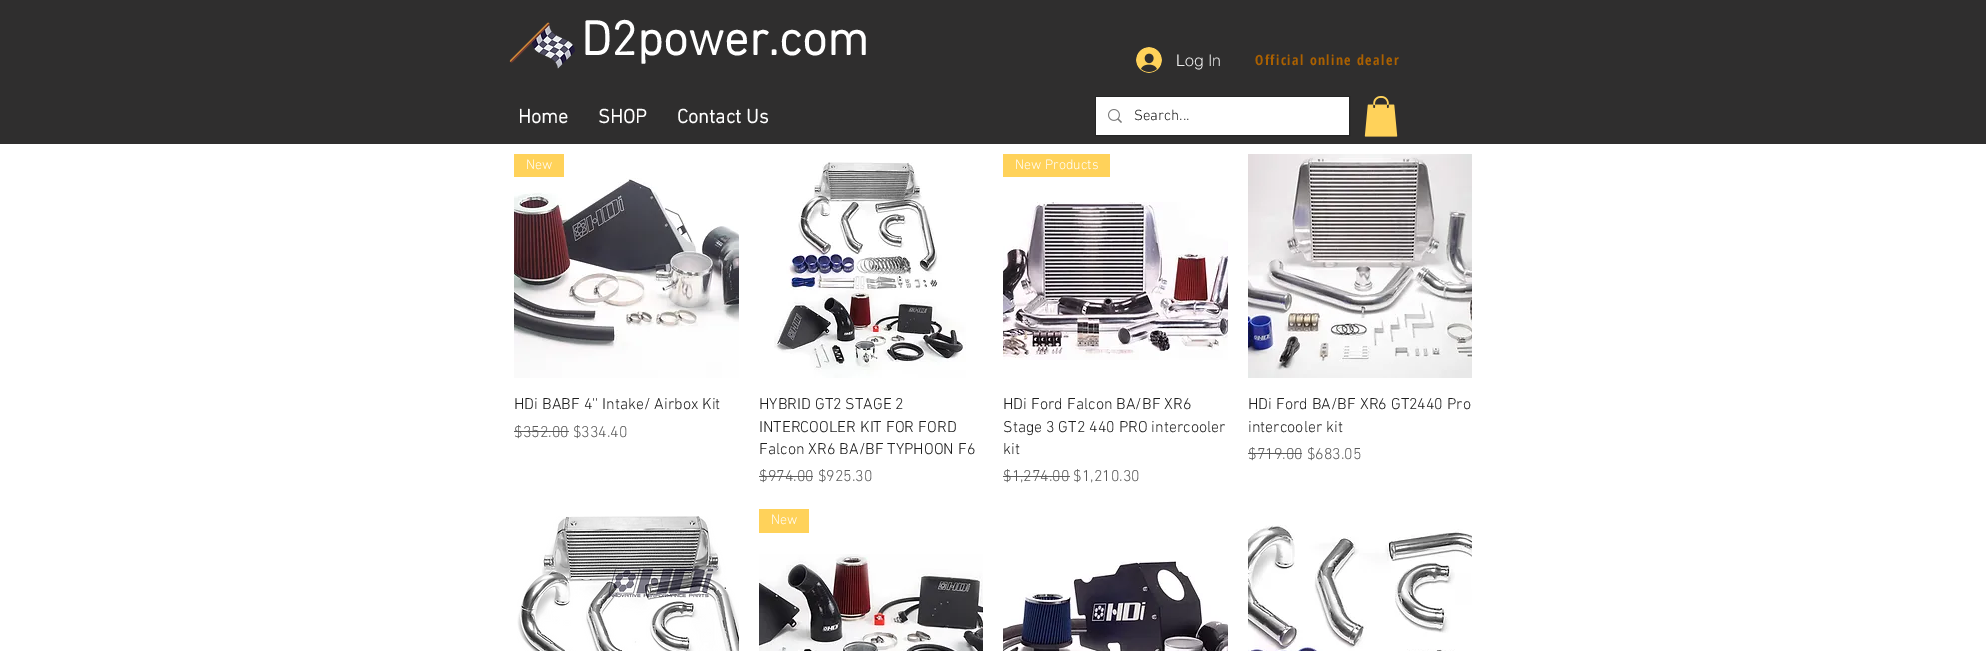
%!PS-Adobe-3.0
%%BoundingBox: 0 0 1986 651
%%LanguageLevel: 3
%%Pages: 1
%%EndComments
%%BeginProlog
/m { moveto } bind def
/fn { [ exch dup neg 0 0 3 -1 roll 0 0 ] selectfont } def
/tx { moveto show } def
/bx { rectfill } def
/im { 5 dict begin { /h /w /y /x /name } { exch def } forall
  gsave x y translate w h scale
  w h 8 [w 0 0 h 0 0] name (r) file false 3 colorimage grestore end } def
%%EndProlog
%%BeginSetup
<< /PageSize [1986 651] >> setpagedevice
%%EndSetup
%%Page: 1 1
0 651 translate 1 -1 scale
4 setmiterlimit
1 setgray
0 0 1986 651 bx
0.184 0.18 0.18 setrgbcolor
0 0 1986 144 bx
(image0.raw) 509 22 66 47 im
/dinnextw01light-Bold 49 fn
1 setgray
(D2power.com) 581 55 tx
(image1.raw) 1136 47 26 26 im
/helvetica-Light 16 fn
0.933 setgray
(Log In) 1176 66 tx
/OpenSansCondensed-Bold 14 fn
0.667 0.376 0 setrgbcolor
1255 65 m 1.4 0 (Official online dealer) ashow
/dinnextw01light-Bold 20 fn
1 setgray
(Home) 518 123 tx
(SHOP) 598 123 tx
(Contact Us) 677 123 tx
0.145 setgray
1095.5 96.5 254 39 rectstroke
1 setgray
1096 97 253 38 bx
(image2.raw) 1108 109 14 14 im
/dinnextw01light-Light 15 fn
0.122 setgray
(Search...) 1134 120 tx
(image3.raw) 1364 96 34 41 im
1 0.824 0.353 setrgbcolor
514 154 50 23 bx
/dinnextw01light-Light 14 fn
1 setgray
(New) 526 169 tx
(image4.raw) 514 178 225 200 im
/dinnextw01light-Light 16 fn
0.122 setgray
(HDi BABF 4'' Intake/ Airbox Kit) 514 409 tx
0.353 setgray
($352.00 $334.40) 514 437 tx
514 431 55 1 bx
(image5.raw) 774 162 192 216 im
0.122 setgray
(HYBRID GT2 STAGE 2) 759 409 tx
(INTERCOOLER KIT FOR FORD) 759 432 tx
(Falcon XR6 BA/BF TYPHOON F6) 759 454 tx
0.353 setgray
($974.00 $925.30) 759 481 tx
759 476 54 1 bx
1 0.824 0.353 setrgbcolor
1003 154 107 23 bx
/dinnextw01light-Light 14 fn
1 setgray
(New Products) 1015 169 tx
(image6.raw) 1003 202 225 158 im
/dinnextw01light-Light 16 fn
0.122 setgray
(HDi Ford Falcon BA/BF XR6) 1003 409 tx
(Stage 3 GT2 440 PRO intercooler) 1003 432 tx
(kit) 1003 454 tx
0.353 setgray
($1,274.00 $1,210.30) 1003 481 tx
1003 476 67 1 bx
(image7.raw) 1248 154 224 224 im
0.122 setgray
(HDi Ford BA/BF XR6 GT2440 Pro) 1248 409 tx
(intercooler kit) 1248 432 tx
0.353 setgray
($719.00 $683.05) 1248 459 tx
1248 453 54 1 bx
(image8.raw) 517 516 222 135 im
1 0.824 0.353 setrgbcolor
759 509 50 24 bx
/dinnextw01light-Light 14 fn
1 setgray
(New) 771 524 tx
(image9.raw) 759 554 224 97 im
(image10.raw) 1003 561 225 90 im
(image11.raw) 1248 525 224 126 im
showpage
%%EOF
